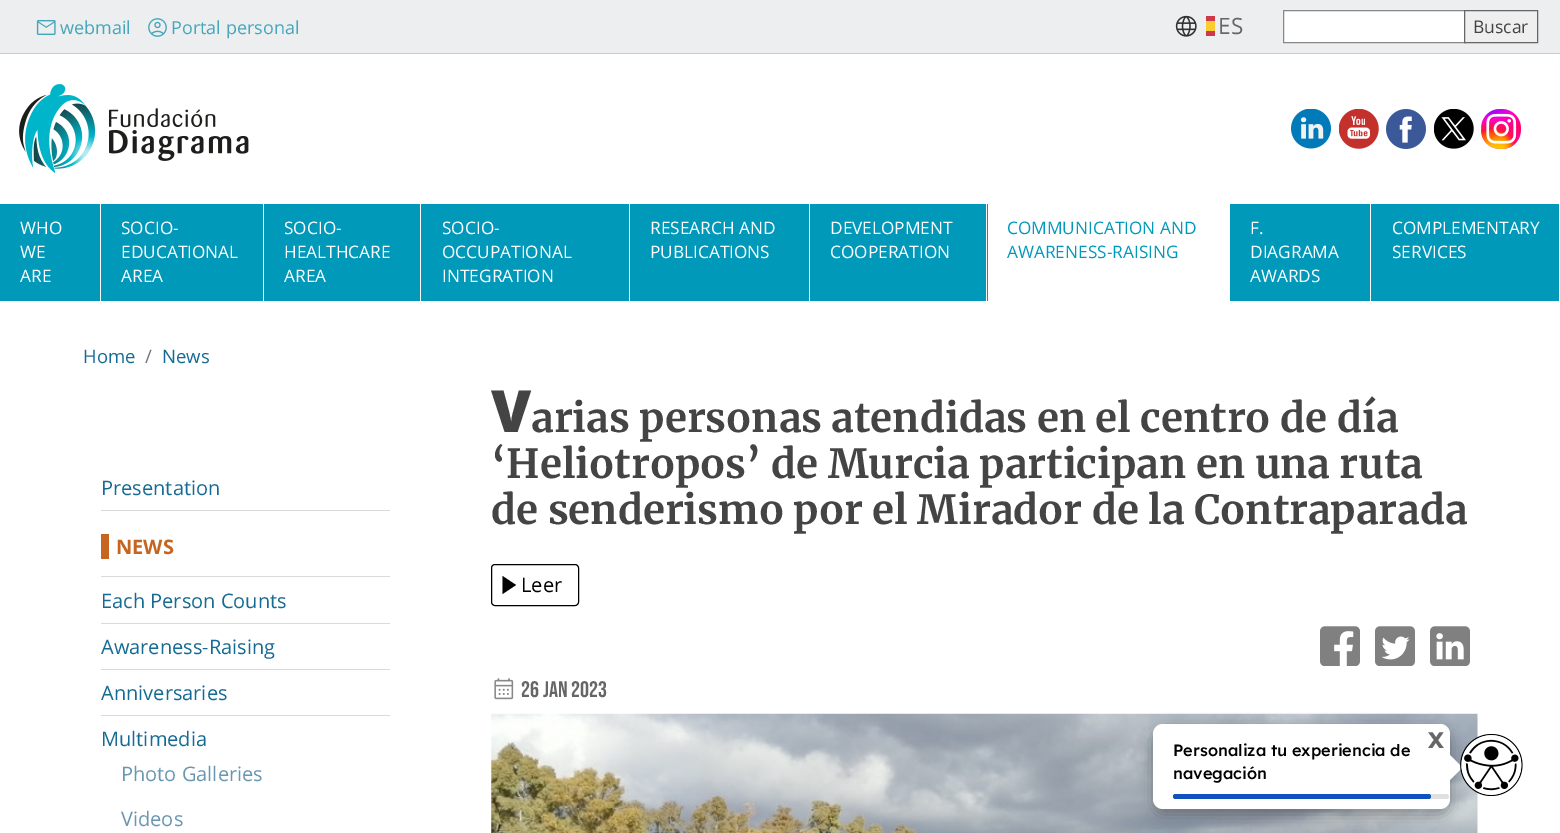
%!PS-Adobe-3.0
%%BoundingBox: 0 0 1560 833
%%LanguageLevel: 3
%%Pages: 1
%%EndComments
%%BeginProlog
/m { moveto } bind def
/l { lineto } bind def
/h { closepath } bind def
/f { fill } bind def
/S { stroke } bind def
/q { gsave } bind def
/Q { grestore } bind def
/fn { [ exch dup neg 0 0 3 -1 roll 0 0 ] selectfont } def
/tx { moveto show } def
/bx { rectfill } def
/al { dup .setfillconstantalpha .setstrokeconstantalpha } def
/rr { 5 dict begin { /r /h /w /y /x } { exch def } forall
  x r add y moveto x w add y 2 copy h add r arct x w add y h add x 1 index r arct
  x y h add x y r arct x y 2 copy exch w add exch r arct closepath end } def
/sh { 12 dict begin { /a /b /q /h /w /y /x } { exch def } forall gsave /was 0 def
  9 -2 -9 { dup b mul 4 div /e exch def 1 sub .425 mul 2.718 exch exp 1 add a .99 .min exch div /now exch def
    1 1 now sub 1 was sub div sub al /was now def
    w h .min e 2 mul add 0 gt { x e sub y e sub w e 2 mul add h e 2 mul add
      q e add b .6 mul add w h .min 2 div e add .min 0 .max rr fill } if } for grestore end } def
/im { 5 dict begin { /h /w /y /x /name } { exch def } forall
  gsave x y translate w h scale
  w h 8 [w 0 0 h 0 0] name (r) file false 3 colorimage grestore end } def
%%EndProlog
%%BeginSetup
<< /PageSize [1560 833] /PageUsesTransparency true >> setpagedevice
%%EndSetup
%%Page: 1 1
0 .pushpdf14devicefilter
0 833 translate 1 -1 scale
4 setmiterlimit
1 setgray
0 0 1560 833 bx
0.925 0.933 0.941 setrgbcolor
0 0 1560 53 bx
0.8 setgray
0 53 1560 1 bx
(image0.raw) 36 20 20 15 im
/OpenSans-Regular 18 fn
0.263 0.651 0.733 setrgbcolor
(webmail) 60 34 tx
(image1.raw) 148 18 19 19 im
(Portal personal) 171 34 tx
(image2.raw) 1175 15 22 22 im
0.808 0.22 0.282 setrgbcolor
1206 16 9 20 bx
0.984 0.8 0.188 setrgbcolor
1206 21 9 10 bx
/OpenSans-Regular 22.5 fn
0.4 setgray
(ES) 1218 34 tx
1 setgray
1284 11 180 31 bx
0.533 setgray
1283.5 10.5 182 32 rectstroke
0.937 setgray
1464.5 10.5 m 1537.5 10.5 l 1537.5 42.5 l 1464.5 42.5 l h q f Q
0.4 setgray
S
/OpenSans-Regular 17.5 fn
0.267 setgray
(Buscar) 1473 33 tx
(image3.raw) 19 84 230 89 im
(image4.raw) 1291 109 40 40 im
(image5.raw) 1339 109 40 40 im
(image6.raw) 1386 109 40 40 im
(image7.raw) 1434 109 40 40 im
(image8.raw) 1481 109 40 40 im
0 0.6 0.729 setrgbcolor
0 204 1559 97 bx
1 setgray
100 204 1 97 bx
/OpenSans-Regular 17.25 fn
(WHO) 20 234 tx
(WE) 20 258 tx
(ARE) 20 282 tx
263 204 1 97 bx
(SOCIO-) 121 234 tx
(EDUCATIONAL) 121 258 tx
(AREA) 121 282 tx
420 204 1 97 bx
(SOCIO-) 284 234 tx
(HEALTHCARE) 284 258 tx
(AREA) 284 282 tx
629 204 1 97 bx
(SOCIO-) 442 234 tx
(OCCUPATIONAL) 442 258 tx
(INTEGRATION) 442 282 tx
809 204 1 97 bx
(RESEARCH AND) 650 234 tx
(PUBLICATIONS) 650 258 tx
986 204 1 97 bx
(DEVELOPMENT) 830 234 tx
(COOPERATION) 830 258 tx
988 204 242 97 bx
0 0.6 0.729 setrgbcolor
(COMMUNICATION AND) 1007 234 tx
(AWARENESS-RAISING) 1007 258 tx
1 setgray
1370 204 1 97 bx
(F.) 1250 234 tx
(DIAGRAMA) 1250 258 tx
(AWARDS) 1250 282 tx
(COMPLEMENTARY) 1392 234 tx
(SERVICES) 1392 258 tx
/OpenSans-Regular 18.5 fn
0.086 0.42 0.584 setrgbcolor
(Home) 83 363 tx
0.424 0.459 0.49 setrgbcolor
(/) 145 363 tx
0.086 0.42 0.584 setrgbcolor
(News) 162 363 tx
0.855 setgray
101 510 289 1 bx
/OpenSans-Regular 20 fn
0.086 0.42 0.584 setrgbcolor
(Presentation) 101 495 tx
0.855 setgray
101 576 289 1 bx
0.773 0.396 0.125 setrgbcolor
101 534 8 25 bx
/OpenSans-Bold 20 fn
(NEWS) 116 554 tx
0.855 setgray
101 623 289 1 bx
/OpenSans-Regular 20 fn
0.086 0.42 0.584 setrgbcolor
(Each Person Counts) 101 608 tx
0.855 setgray
101 669 289 1 bx
0.086 0.42 0.584 setrgbcolor
(Awareness-Raising) 101 654 tx
0.855 setgray
101 715 289 1 bx
0.086 0.42 0.584 setrgbcolor
(Anniversaries) 101 700 tx
(Multimedia) 101 746 tx
0.412 0.588 0.694 setrgbcolor
(Photo Galleries) 121 781 tx
(Videos) 121 826 tx
/NotoSans-Black 58 fn
0.267 setgray
(V) 491 432 tx
/Merriweather-Bold 40 fn
(arias personas atendidas en el centro de día) 531 432 tx
(‘Heliotropos’ de Murcia participan en una ruta) 491 478 tx
(de senderismo por el Mirador de la Contraparada) 491 524 tx
0 setgray
502.5 576 m 502.5 594 l 516 585 l h f
491.5 564.5 87 41 3.5 rr S
/OpenSans-Regular 20 fn
(Leer) 521 592 tx
(image9.raw) 1320 626 40 40 im
(image10.raw) 1375 626 40 40 im
(image11.raw) 1430 626 40 40 im
(image12.raw) 494 678 20 22 im
/BebasNeue-Regular 22.5 fn
0.4 setgray
(26 Jan 2023) 521 697 tx
(image13.raw) 491 713 987 120 im
0 setgray
1153 729 297 85 10 7.5 0.3 sh
1 setgray
1153 724 297 85 10 rr f
/Lexend-Bold 22.5 fn
0.4 setgray
(X) 1428 748 tx
/Lexend-Medium 16.25 fn
0 setgray
(Personaliza tu experiencia de) 1173 756 tx
(navegación) 1173 779 tx
1 setgray
1450 780 m 1450 755 l 1462.5 767.5 l h f
0.878 setgray
1173 794 276 5 2.5 rr f
0.059 0.322 0.741 setrgbcolor
1173 794 258 5 2.5 rr f
(image14.raw) 1460 734 63 62 im
.poppdf14devicefilter showpage
%%EOF
